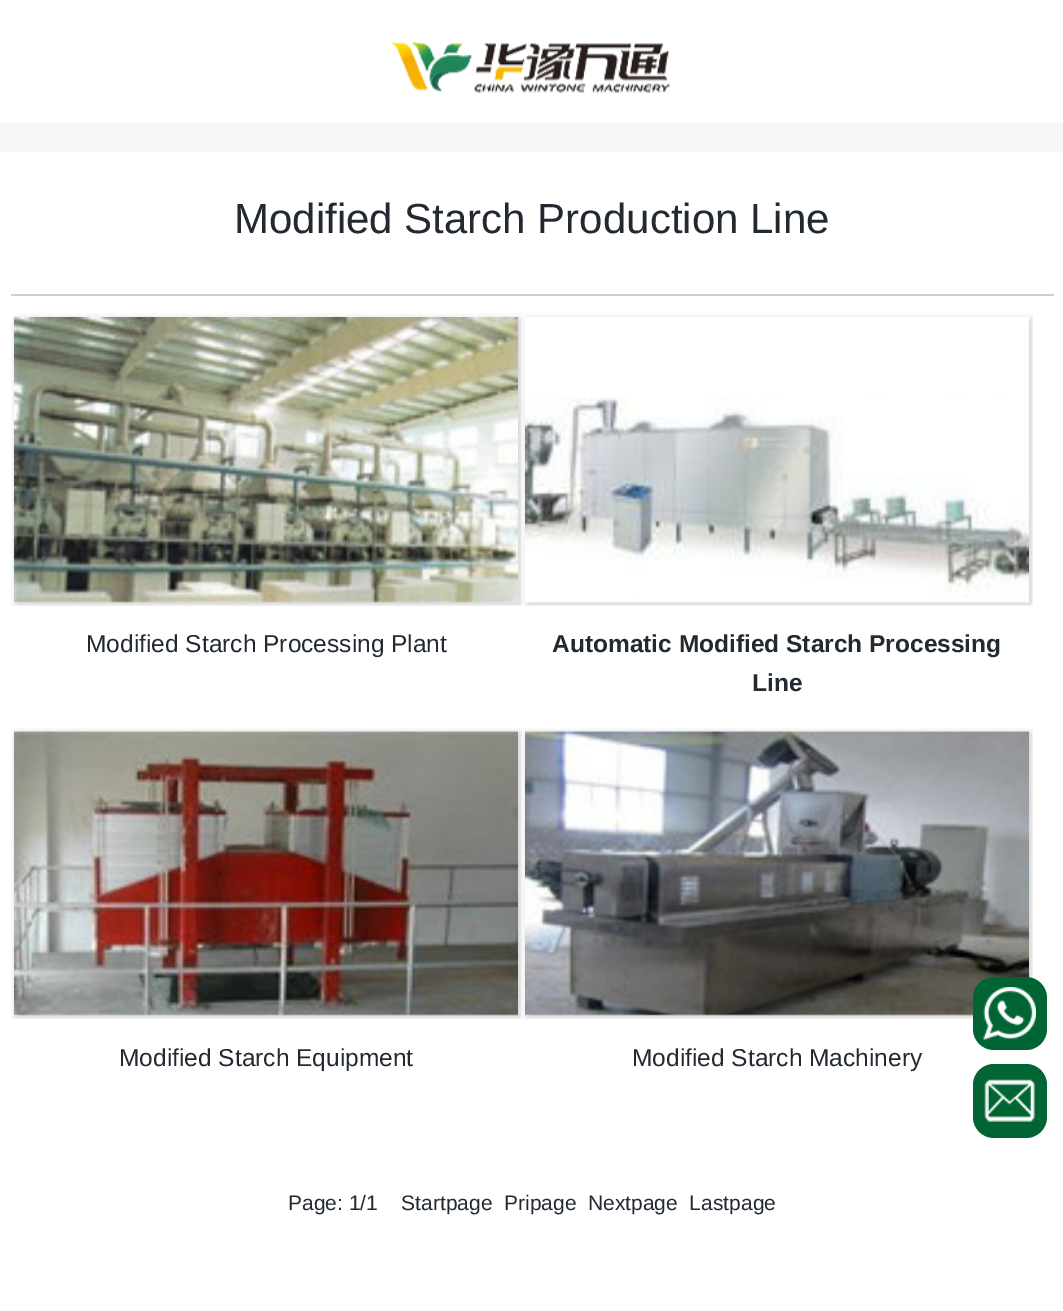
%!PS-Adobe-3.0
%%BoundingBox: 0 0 1063 1311
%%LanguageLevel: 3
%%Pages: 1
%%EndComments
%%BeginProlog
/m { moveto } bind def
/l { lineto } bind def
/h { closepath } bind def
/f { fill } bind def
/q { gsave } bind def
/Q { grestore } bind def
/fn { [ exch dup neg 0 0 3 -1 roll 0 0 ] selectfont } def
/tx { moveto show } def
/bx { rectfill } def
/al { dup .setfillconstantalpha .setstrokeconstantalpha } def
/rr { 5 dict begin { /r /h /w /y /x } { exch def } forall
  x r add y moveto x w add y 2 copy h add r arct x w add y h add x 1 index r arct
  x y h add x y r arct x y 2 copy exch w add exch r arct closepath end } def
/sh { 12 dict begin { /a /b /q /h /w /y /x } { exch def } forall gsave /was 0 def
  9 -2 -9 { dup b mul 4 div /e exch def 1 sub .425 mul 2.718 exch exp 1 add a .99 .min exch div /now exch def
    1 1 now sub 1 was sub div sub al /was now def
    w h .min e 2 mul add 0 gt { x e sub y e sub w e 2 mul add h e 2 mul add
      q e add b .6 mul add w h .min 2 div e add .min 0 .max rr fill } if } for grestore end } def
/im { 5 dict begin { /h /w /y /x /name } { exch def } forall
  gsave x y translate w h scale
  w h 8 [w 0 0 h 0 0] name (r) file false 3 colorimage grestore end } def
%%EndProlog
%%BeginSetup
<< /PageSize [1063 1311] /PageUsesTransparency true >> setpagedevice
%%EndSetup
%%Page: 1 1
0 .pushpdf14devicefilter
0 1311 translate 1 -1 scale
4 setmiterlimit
1 setgray
0 0 1063 1311 bx
(image0.raw) 392 42 279 51 im
0.965 setgray
0 123 1063 29 bx
0.812 setgray
11 294 1043 2 bx
/LiberationSans-Regular 42 fn
0.133 0.161 0.192 setrgbcolor
(Modified Starch Production Line) 234 233 tx
q
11 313 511 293 rectclip
0 setgray
16 319 504 285 0 3.5 0.2 sh
Q
(image1.raw) 14 317 504 286 im
/LiberationSans-Regular 24.5 fn
(Modified Starch Processing Plant) 86 652 tx
q
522 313 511 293 rectclip
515 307 m 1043 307 l 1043 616 l 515 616 l h 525 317 m 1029 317 l 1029 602 l 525 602 l h eoclip newpath
0 setgray
527 319 504 285 0 3.5 0.2 sh
Q
(image2.raw) 525 397 504 206 im
/LiberationSans-Bold 24.5 fn
(Automatic Modified Starch Processing) 552 652 tx
(Line) 752 691 tx
q
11 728 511 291 rectclip
0 setgray
16 733 504 284 0 3.5 0.2 sh
Q
(image3.raw) 14 730 504 286 im
/LiberationSans-Regular 24.5 fn
(Modified Starch Equipment) 119 1066 tx
q
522 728 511 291 rectclip
0 setgray
527 733 504 284 0 3.5 0.2 sh
Q
(image4.raw) 525 730 504 286 im
(Modified Starch Machinery) 632 1066 tx
/LiberationSans-Regular 21 fn
(Page: 1/1    Startpage  Pripage  Nextpage  Lastpage) 288 1210 tx
0 0.396 0.2 setrgbcolor
973 977 74 73 21 rr f
(image5.raw) 983 987 53 53 im
973 1064 74 74 21 rr f
(image6.raw) 984 1079 51 43 im
.poppdf14devicefilter showpage
%%EOF
